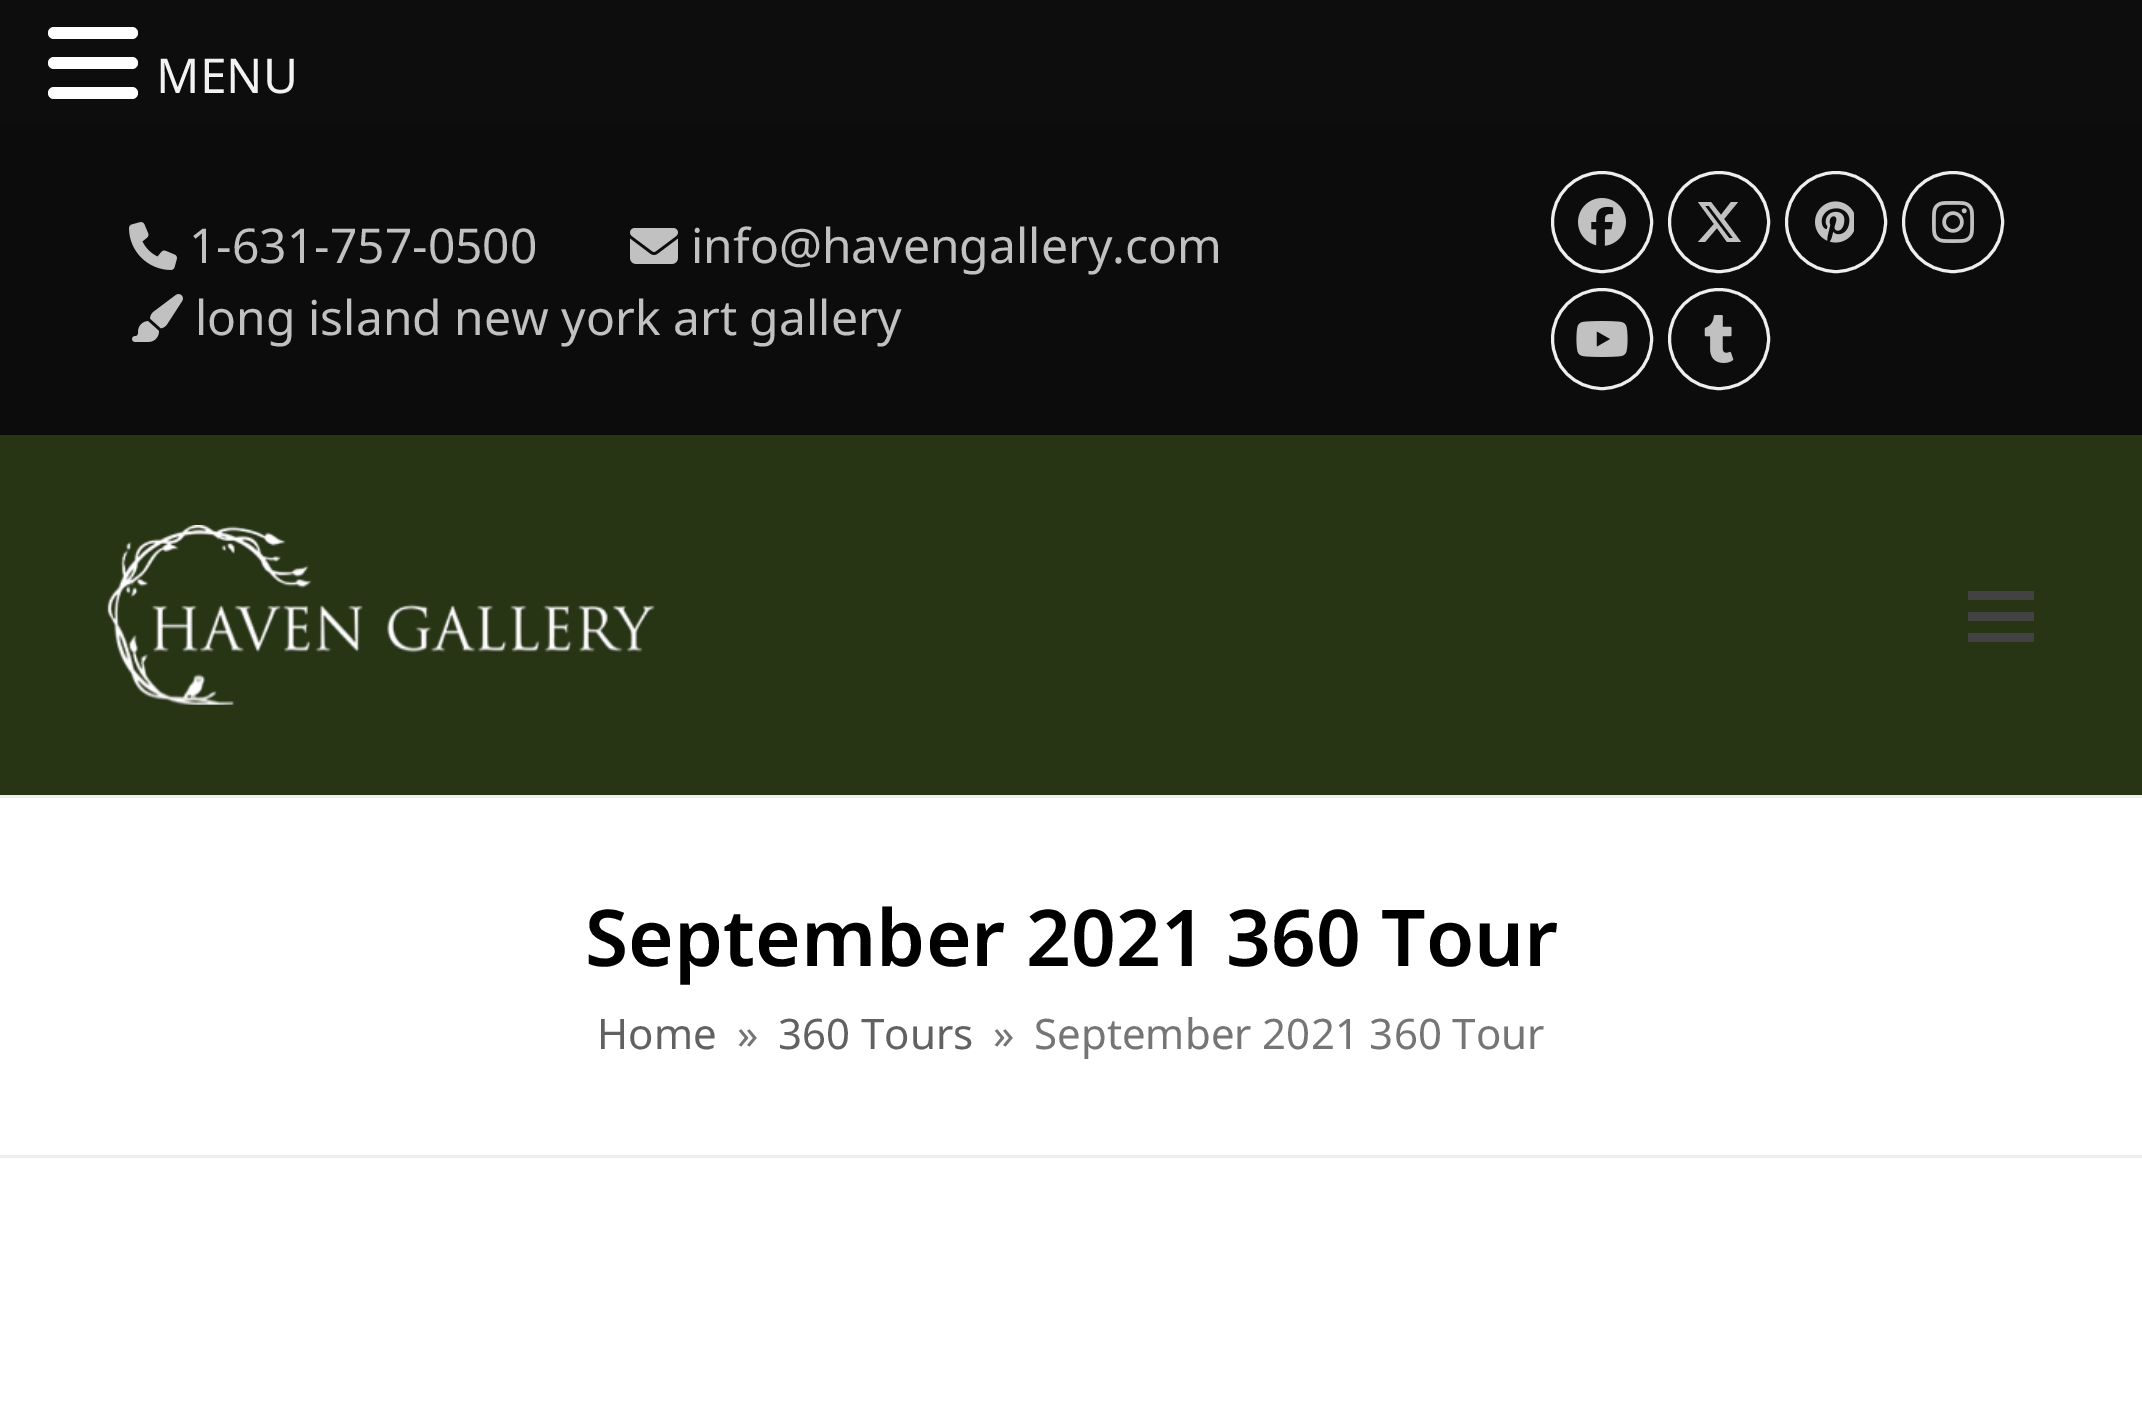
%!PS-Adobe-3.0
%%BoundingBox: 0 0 2142 1409
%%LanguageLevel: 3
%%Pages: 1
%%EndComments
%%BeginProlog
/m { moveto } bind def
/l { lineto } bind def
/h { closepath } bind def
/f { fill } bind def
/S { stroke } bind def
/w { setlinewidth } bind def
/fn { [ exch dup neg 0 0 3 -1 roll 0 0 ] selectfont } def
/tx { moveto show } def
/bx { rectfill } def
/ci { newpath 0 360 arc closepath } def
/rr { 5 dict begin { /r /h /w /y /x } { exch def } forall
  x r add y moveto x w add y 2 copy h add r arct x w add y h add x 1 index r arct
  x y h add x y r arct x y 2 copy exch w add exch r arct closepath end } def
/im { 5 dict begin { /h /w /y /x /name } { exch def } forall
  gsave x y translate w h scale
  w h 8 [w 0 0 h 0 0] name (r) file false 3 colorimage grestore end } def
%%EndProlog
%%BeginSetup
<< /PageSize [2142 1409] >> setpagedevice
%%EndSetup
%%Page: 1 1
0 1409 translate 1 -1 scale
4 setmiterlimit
1 setgray
0 0 2142 1409 bx
0.051 setgray
0 0 2142 126 bx
1 setgray
48 27 90 12 6 rr f
48 57 90 12 6 rr f
48 87 90 12 6 rr f
/NotoSans-Regular 48 fn
0.949 setgray
(MENU) 156 93 tx
0.047 setgray
0 126 2142 309 bx
(image0.raw) 129 222 48 48 im
0.757 setgray
(1-631-757-0500) 189 263 tx
(image1.raw) 630 228 48 36 im
(info@havengallery.com) 691 263 tx
(image2.raw) 132 294 51 48 im
(long island new york art gallery) 195 335 tx
0.933 setgray
3 w
1602 222 49.5 ci S
(image3.raw) 1578 198 48 48 im
1719 222 49.5 ci S
0.757 setgray
1731 202 m 1738 202 l 1724 219 l 1741 242 l 1727 242 l 1717 228 l 1705 242 l 1698 242 l 1714 224 l 1698 202 l 1711 202 l 1721 215 l h 1729 238 m 1733 238 l 1709 206 l 1705 206 l h f
0.933 setgray
1836 222 49.5 ci S
(image4.raw) 1815 201 39 42 im
1953 222 49.5 ci S
(image5.raw) 1932 201 42 42 im
1602 339 49.5 ci S
(image6.raw) 1576 321 52 36 im
1719 339 49.5 ci S
(image7.raw) 1704 315 30 48 im
0.153 0.208 0.082 setrgbcolor
0 435 2142 360 bx
(image8.raw) 106 525 549 180 im
0.259 setgray
1968 612 66 9 bx
1968 591 66 9 bx
1968 633 66 9 bx
0.933 setgray
0 795 2142 3 bx
0 1155 2142 3 bx
/NotoSans-SemiBold 78.5 fn
0 setgray
(September 2021 360 Tour) 585 966 tx
/NotoSans-Regular 42 fn
0.38 setgray
(Home) 597 1049 tx
0.459 setgray
(») 737 1049 tx
0.38 setgray
(360 Tours) 778 1049 tx
0.459 setgray
(») 993 1049 tx
(September 2021 360 Tour) 1034 1049 tx
showpage
%%EOF
